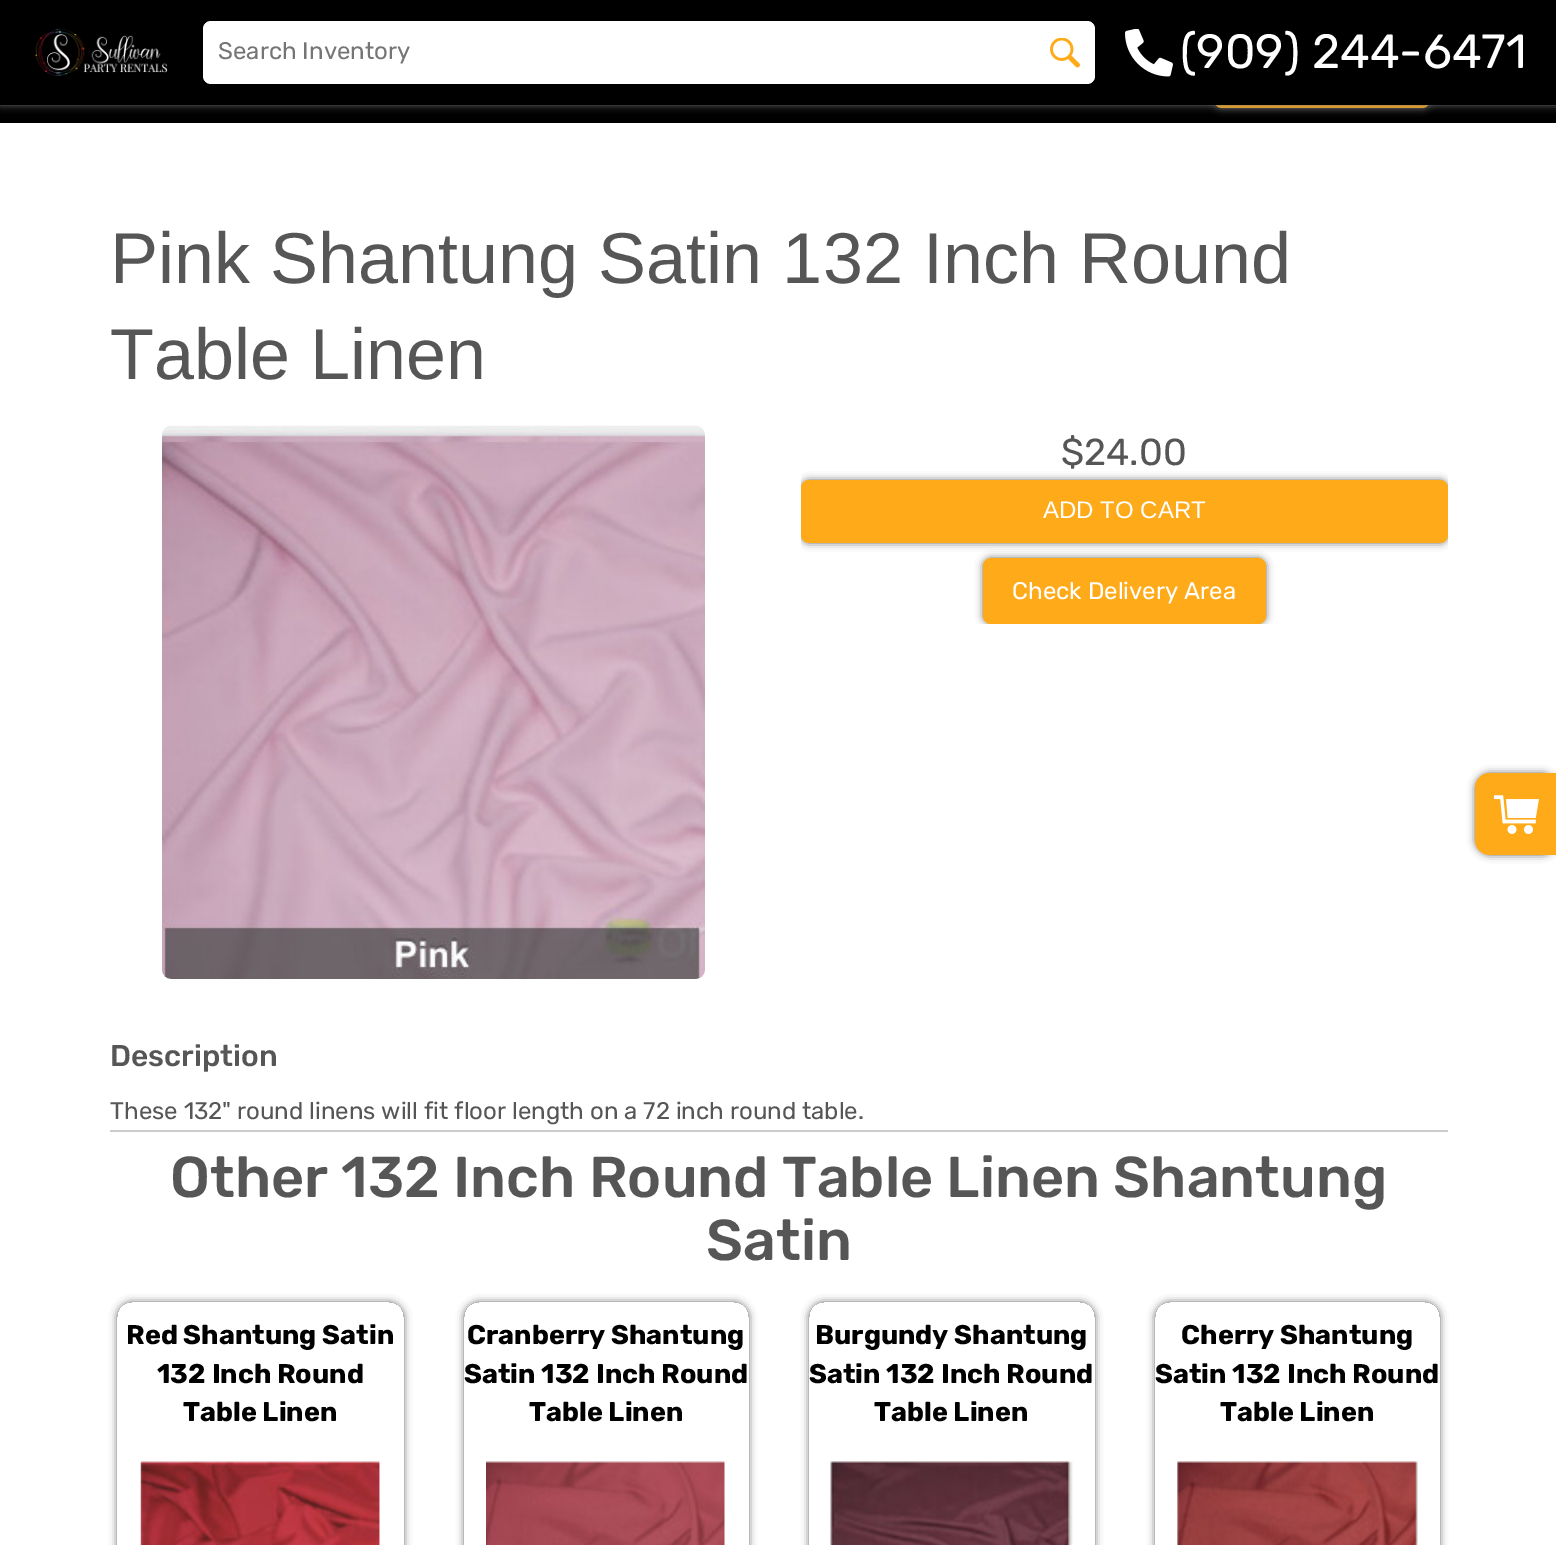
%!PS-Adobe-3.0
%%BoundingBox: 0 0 1556 1545
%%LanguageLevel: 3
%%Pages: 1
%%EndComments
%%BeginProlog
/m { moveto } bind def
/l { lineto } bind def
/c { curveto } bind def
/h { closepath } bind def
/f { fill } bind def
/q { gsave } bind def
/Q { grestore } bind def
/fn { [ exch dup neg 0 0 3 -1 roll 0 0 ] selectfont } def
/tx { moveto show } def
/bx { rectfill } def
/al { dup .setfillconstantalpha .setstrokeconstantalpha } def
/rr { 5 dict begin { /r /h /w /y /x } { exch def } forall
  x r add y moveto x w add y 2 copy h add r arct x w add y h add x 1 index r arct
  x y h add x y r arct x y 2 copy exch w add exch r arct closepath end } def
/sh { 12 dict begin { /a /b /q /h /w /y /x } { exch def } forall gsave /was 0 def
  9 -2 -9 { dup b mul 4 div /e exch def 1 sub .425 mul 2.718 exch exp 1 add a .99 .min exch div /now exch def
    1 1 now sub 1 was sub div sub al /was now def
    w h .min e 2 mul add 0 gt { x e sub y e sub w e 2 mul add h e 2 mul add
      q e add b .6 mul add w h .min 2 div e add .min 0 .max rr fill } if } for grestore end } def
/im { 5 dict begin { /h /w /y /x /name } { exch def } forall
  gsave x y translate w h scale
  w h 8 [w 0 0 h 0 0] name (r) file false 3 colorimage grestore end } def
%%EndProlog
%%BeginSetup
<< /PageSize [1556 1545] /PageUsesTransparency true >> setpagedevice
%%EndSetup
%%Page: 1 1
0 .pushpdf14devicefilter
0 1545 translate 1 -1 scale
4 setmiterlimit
1 setgray
0 0 1556 1545 bx
0 setgray
0 105 1556 18 bx
0.439 setgray
1214 44 216 64 8 4 1 sh
1 0.667 0.098 setrgbcolor
1214 44 216 64 8 rr f
0.439 setgray
0 0 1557 105 0 4 1 sh
0 setgray
0 0 1556 105 bx
(image0.raw) 35 29 133 47 im
1 setgray
203 21 892 63 8 rr f
/Rubik-Regular 24 fn
0.459 setgray
(Search Inventory) 218 59 tx
(image1.raw) 1050 38 30 30 im
(image2.raw) 1125 29 48 48 im
/Rubik-Regular 48 fn
1 setgray
(\(909\) 244-6471) 1180 68 tx
/LiberationSans-Regular 72 fn
0.337 setgray
(Pink Shantung Satin 132 Inch Round) 110 283 tx
(Table Linen) 110 379 tx
(image3.raw) 162 425 543 554 im
/Rubik-Regular 37.5 fn
($24.00) 1061 465 tx
q
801 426 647 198 rectclip
0.439 setgray
801 480 647 63 8 4 1 sh
Q
1 0.667 0.098 setrgbcolor
801 480 647 63 8 rr f
/LiberationSans-Regular 24 fn
1 setgray
(ADD TO CART) 1043 518 tx
q
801 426 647 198 rectclip
0.439 setgray
983 558 283 66 8 4 1 sh
Q
1 0.667 0.098 setrgbcolor
983 558 283 66 8 rr f
/Rubik-Regular 24 fn
1 setgray
(Check Delivery Area) 1012 599 tx
/Rubik-Medium 30 fn
0.337 setgray
(Description) 110 1066 tx
/Rubik-Regular 24 fn
(These 132" round linens will fit floor length on a 72 inch round table.) 110 1119 tx
0.8 setgray
110 1130 1338 2 bx
/Rubik-Medium 57.6 fn
0.337 setgray
(Other 132 Inch Round Table Linen Shantung) 170 1197 tx
(Satin) 706 1260 tx
q
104 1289 m 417 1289 l 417 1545 l 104 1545 l h 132 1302 m 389 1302 l 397.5 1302 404 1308.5 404 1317 c 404 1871 l 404 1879.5 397.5 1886 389 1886 c 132 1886 l 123.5 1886 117 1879.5 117 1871 c 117 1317 l 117 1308.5 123.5 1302 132 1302 c h eoclip newpath
0.439 setgray
117 1302 287 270 15 4 1 sh
Q
/Rubik-Bold 27 fn
0 setgray
(Red Shantung Satin) 126 1344 tx
(132 Inch Round) 157 1383 tx
(Table Linen) 183 1421 tx
(image4.raw) 140 1461 240 84 im
q
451 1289 m 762 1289 l 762 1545 l 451 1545 l h 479 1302 m 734 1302 l 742.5 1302 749 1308.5 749 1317 c 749 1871 l 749 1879.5 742.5 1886 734 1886 c 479 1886 l 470.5 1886 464 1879.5 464 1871 c 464 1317 l 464 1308.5 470.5 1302 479 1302 c h eoclip newpath
0.439 setgray
464 1302 285 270 15 4 1 sh
Q
(Cranberry Shantung) 467 1344 tx
(Satin 132 Inch Round) 464 1383 tx
(Table Linen) 529 1421 tx
(image5.raw) 486 1461 239 84 im
q
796 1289 m 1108 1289 l 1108 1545 l 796 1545 l h 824 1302 m 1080 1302 l 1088.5 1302 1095 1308.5 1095 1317 c 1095 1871 l 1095 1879.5 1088.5 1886 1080 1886 c 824 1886 l 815.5 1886 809 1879.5 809 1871 c 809 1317 l 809 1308.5 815.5 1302 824 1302 c h eoclip newpath
0.439 setgray
809 1302 286 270 15 4 1 sh
Q
(Burgundy Shantung) 815 1344 tx
(Satin 132 Inch Round) 809 1383 tx
(Table Linen) 874 1421 tx
(image6.raw) 830 1461 243 84 im
q
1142 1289 m 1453 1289 l 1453 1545 l 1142 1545 l h 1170 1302 m 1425 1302 l 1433.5 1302 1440 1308.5 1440 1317 c 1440 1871 l 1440 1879.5 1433.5 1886 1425 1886 c 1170 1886 l 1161.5 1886 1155 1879.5 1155 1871 c 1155 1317 l 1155 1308.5 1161.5 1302 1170 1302 c h eoclip newpath
0.439 setgray
1155 1302 285 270 15 4 1 sh
Q
(Cherry Shantung) 1181 1344 tx
(Satin 132 Inch Round) 1155 1383 tx
(Table Linen) 1220 1421 tx
(image7.raw) 1177 1461 241 84 im
0.439 setgray
1475 773 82 82 15 4 1 sh
1 0.667 0.098 setrgbcolor
1490 773 m 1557 773 l 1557 855 l 1490 855 l 1481.5 855 1475 848.5 1475 840 c 1475 788 l 1475 779.5 1481.5 773 1490 773 c h f
(image8.raw) 1494 795 45 39 im
.poppdf14devicefilter showpage
%%EOF
